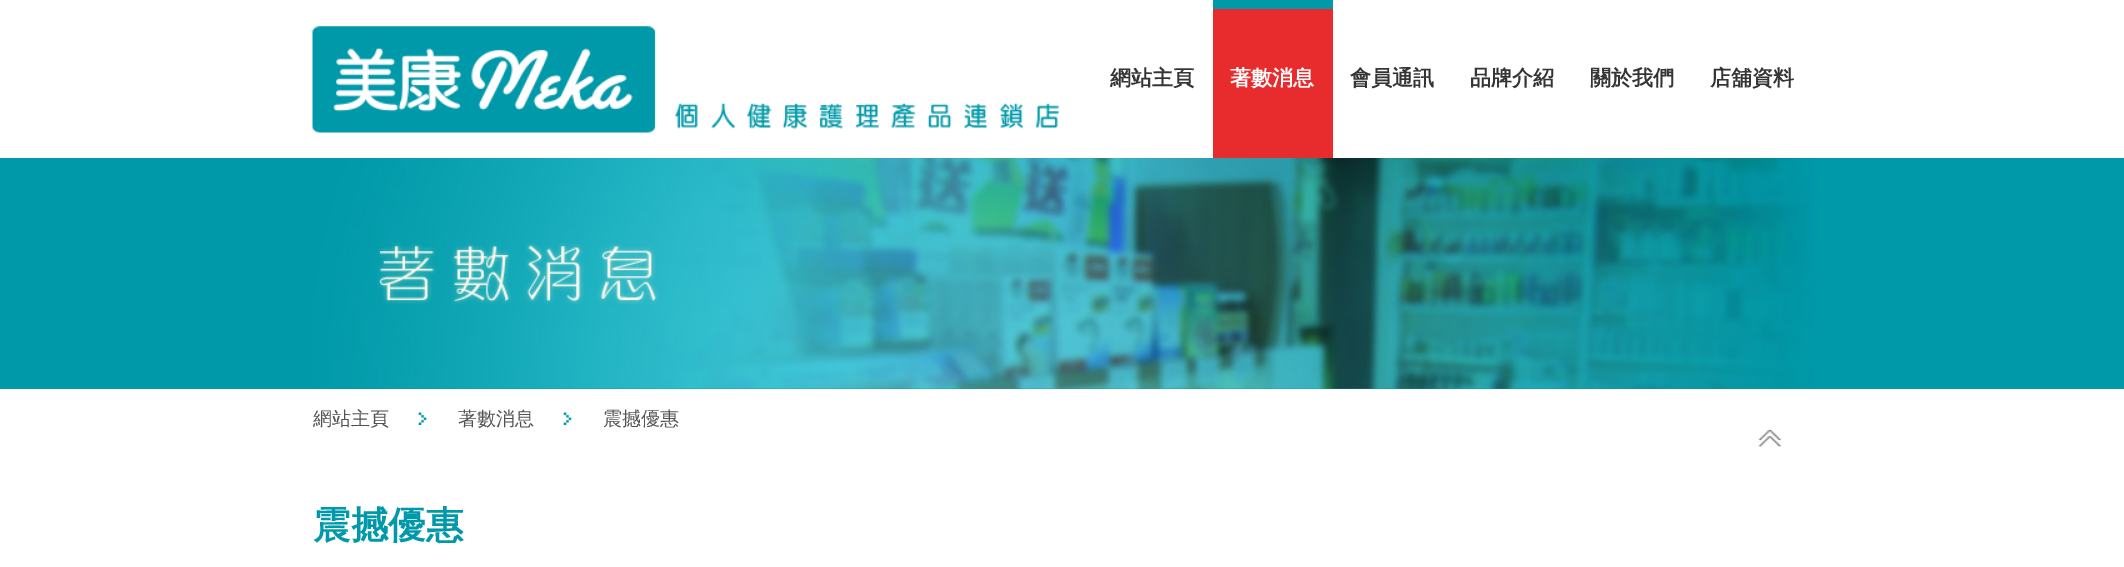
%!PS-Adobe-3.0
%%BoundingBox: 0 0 2124 567
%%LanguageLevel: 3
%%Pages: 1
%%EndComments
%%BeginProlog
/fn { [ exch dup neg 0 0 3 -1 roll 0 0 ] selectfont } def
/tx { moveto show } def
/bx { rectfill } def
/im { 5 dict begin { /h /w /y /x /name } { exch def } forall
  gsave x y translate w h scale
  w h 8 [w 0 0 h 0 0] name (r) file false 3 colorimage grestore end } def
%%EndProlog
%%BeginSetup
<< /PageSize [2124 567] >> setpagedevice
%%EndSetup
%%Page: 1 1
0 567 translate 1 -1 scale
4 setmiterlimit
1 setgray
0 0 2124 567 bx
(image0.raw) 312 26 747 107 im
/WenQuanYiZenHei-Bold 21 fn
0.208 setgray
(網站主頁) 1110 85 tx
0.91 0.173 0.18 setrgbcolor
1213 9 120 149 bx
0 0.6 0.663 setrgbcolor
1213 0 120 9 bx
1 setgray
(著數消息) 1230 85 tx
0.208 setgray
(會員通訊) 1350 85 tx
(品牌介紹) 1470 85 tx
(關於我們) 1590 85 tx
(店舖資料) 1710 85 tx
0 0.6 0.663 setrgbcolor
0 158 2124 231 bx
(image1.raw) 312 158 1501 231 im
(image2.raw) 377 243 282 61 im
/WenQuanYiZenHei-Medium 19 fn
0.322 setgray
(網站主頁) 313 425 tx
(image3.raw) 418 412 9 13 im
(著數消息) 458 425 tx
(image3.raw) 563 412 9 13 im
(震撼優惠) 603 425 tx
(image4.raw) 1758 429 24 18 im
/WenQuanYiZenHei-Bold 37.5 fn
0 0.6 0.663 setrgbcolor
(震撼優惠) 313 538 tx
showpage
%%EOF
